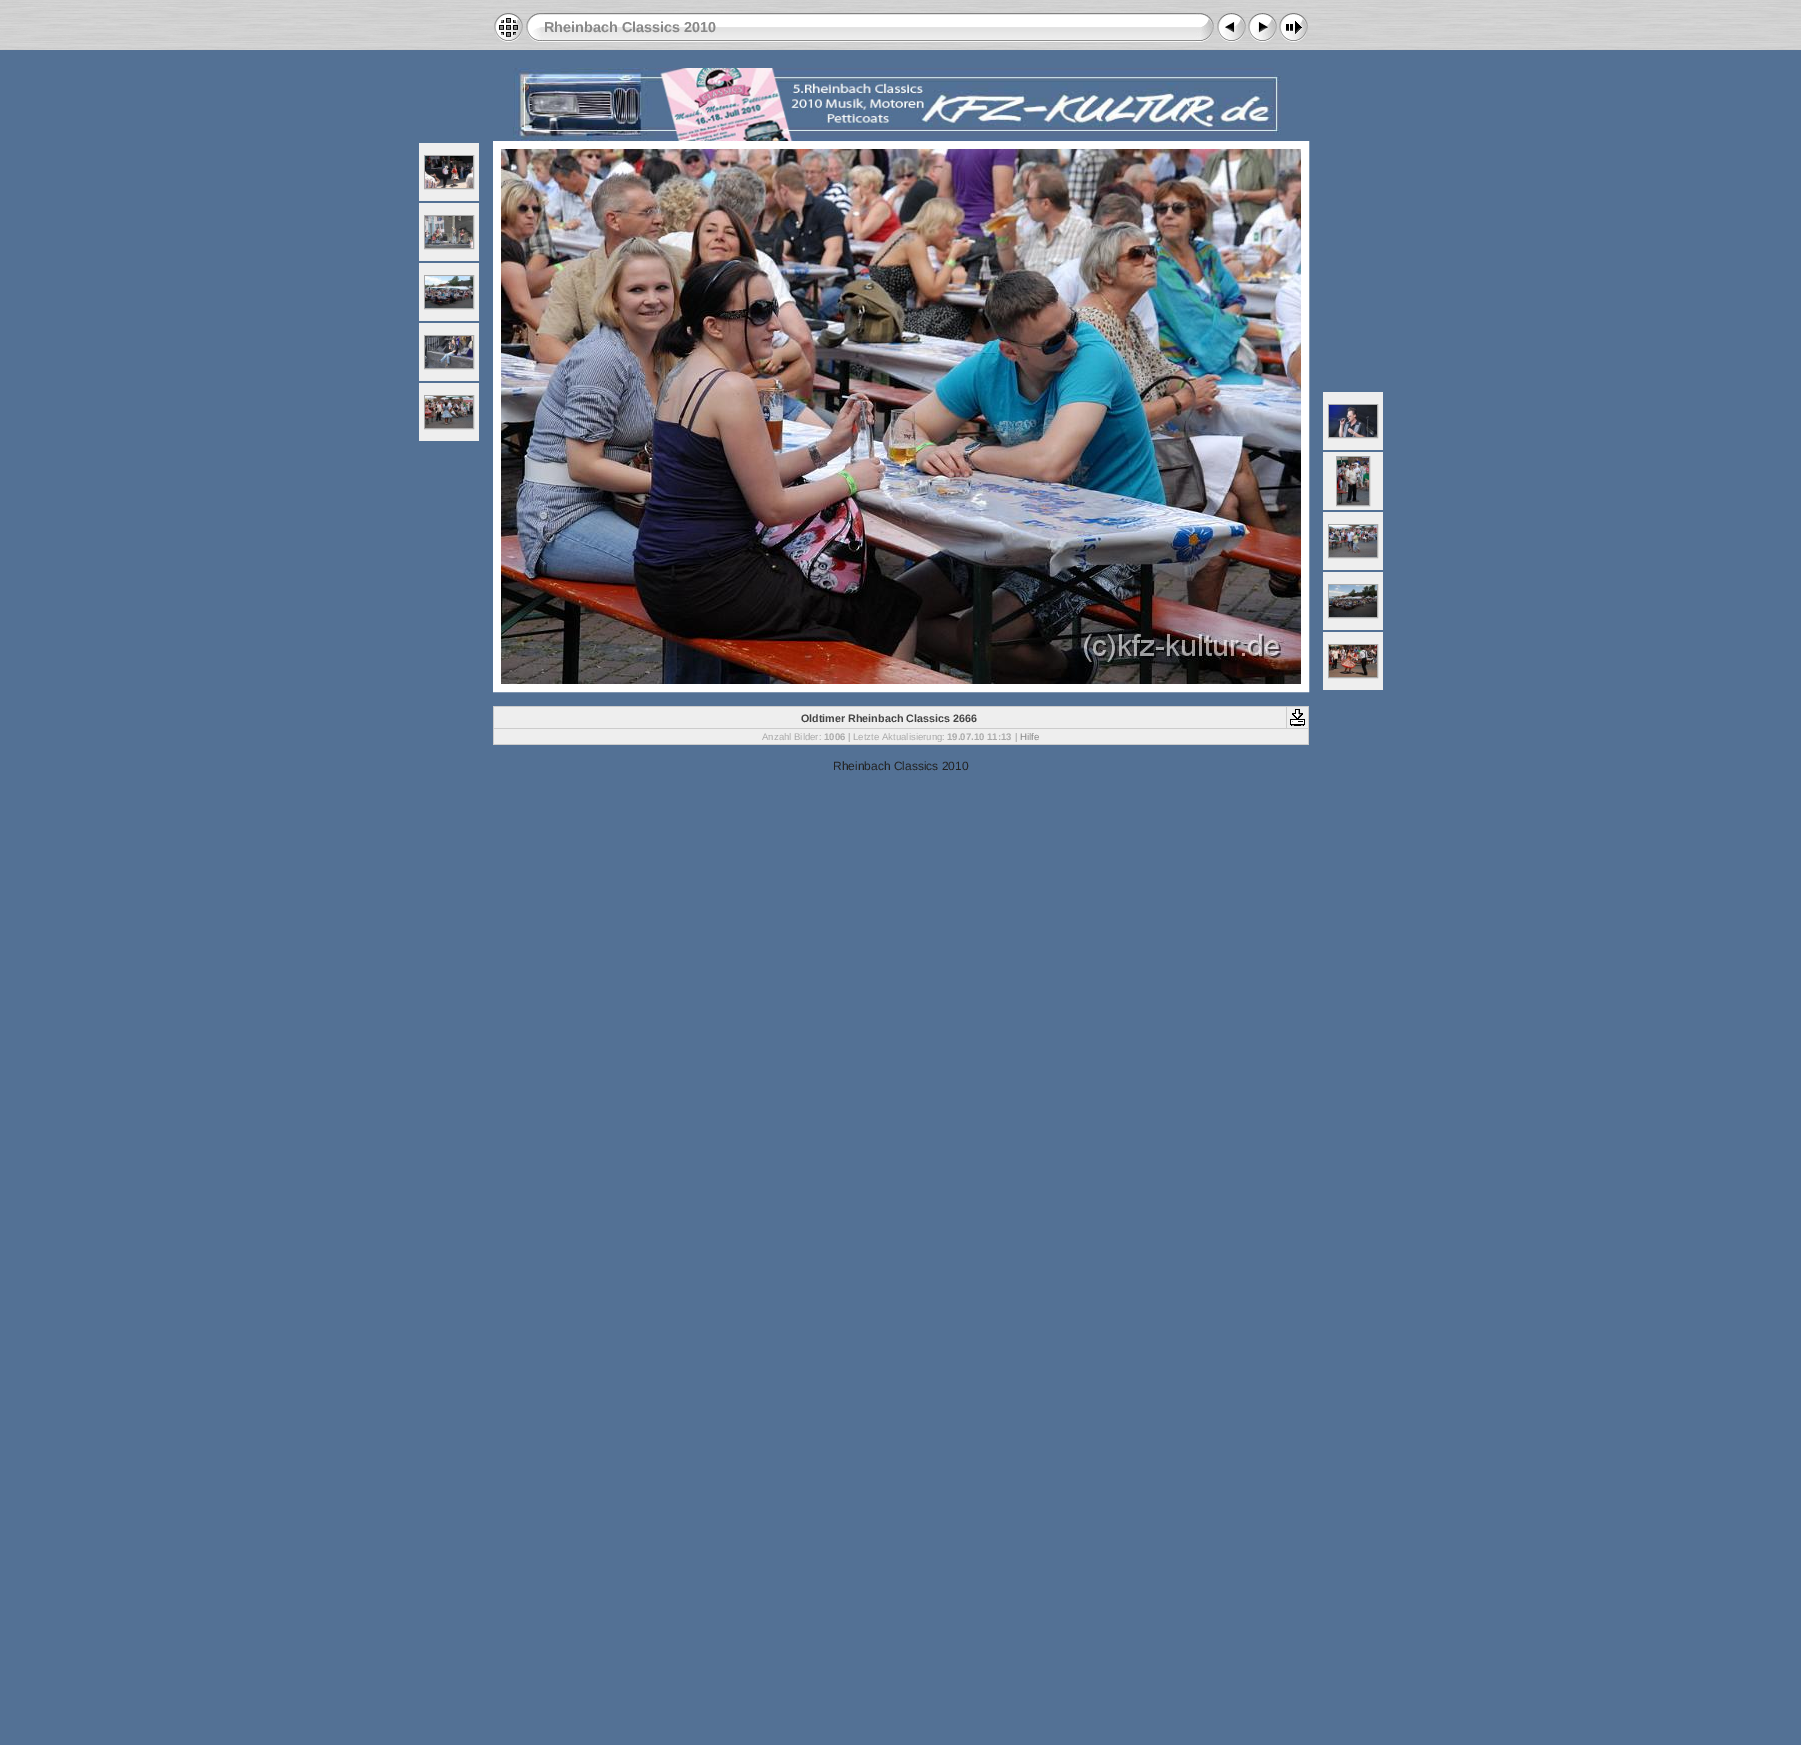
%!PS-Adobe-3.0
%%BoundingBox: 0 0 1801 1745
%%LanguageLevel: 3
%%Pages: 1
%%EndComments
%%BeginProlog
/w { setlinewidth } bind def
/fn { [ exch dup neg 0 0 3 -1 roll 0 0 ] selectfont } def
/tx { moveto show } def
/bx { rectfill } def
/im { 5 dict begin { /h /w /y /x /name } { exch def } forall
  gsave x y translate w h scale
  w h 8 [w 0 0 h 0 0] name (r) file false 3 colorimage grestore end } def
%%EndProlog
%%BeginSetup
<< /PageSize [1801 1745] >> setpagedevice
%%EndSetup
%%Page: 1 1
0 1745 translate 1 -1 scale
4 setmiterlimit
0.325 0.443 0.584 setrgbcolor
0 0 1801 1745 bx
(image0.raw) 0 0 1801 50 im
(image1.raw) 494 13 29 29 im
(image2.raw) 526 13 18 29 im
(image3.raw) 544 13 652 29 im
/LiberationSans-Bold 14.4 fn
0.533 setgray
(Rheinbach Classics 2010) 544 32 tx
(image4.raw) 1196 13 18 29 im
(image5.raw) 1217 13 29 29 im
(image6.raw) 1248 13 29 29 im
(image7.raw) 1279 13 29 29 im
(image8.raw) 513 68 768 73 im
0.933 setgray
419 143 60 58 bx
0.667 setgray
424.5 155.5 49 33 rectstroke
(image9.raw) 425 156 48 32 im
0.933 setgray
419 203 60 58 bx
0.667 setgray
424.5 215.5 49 33 rectstroke
(image10.raw) 425 216 48 32 im
0.933 setgray
419 263 60 58 bx
0.667 setgray
424.5 275.5 49 33 rectstroke
(image11.raw) 425 276 48 32 im
0.933 setgray
419 323 60 58 bx
0.667 setgray
424.5 335.5 49 33 rectstroke
(image12.raw) 425 336 48 32 im
0.933 setgray
419 383 60 58 bx
0.667 setgray
424.5 395.5 49 33 rectstroke
(image13.raw) 425 396 48 32 im
1 setgray
8 w
497 145 808 543 rectstroke
(image14.raw) 501 149 800 535 im
0.933 setgray
1323 392 60 58 bx
0.667 setgray
1 w
1328.5 404.5 49 33 rectstroke
(image15.raw) 1329 405 48 32 im
0.933 setgray
1323 452 60 58 bx
0.667 setgray
1336.5 456.5 33 49 rectstroke
(image16.raw) 1337 457 32 48 im
0.933 setgray
1323 512 60 58 bx
0.667 setgray
1328.5 524.5 49 33 rectstroke
(image17.raw) 1329 525 48 32 im
0.933 setgray
1323 572 60 58 bx
0.667 setgray
1328.5 584.5 49 33 rectstroke
(image18.raw) 1329 585 48 32 im
0.933 setgray
1323 632 60 58 bx
0.667 setgray
1328.5 644.5 49 33 rectstroke
(image19.raw) 1329 645 48 32 im
0.933 setgray
494 707 814 37 bx
0.8 setgray
493 706 816 1 bx
1308 706 1 39 bx
493 744 816 1 bx
493 706 1 39 bx
/LiberationSans-Bold 10.75 fn
0.267 setgray
(Oldtimer Rheinbach Classics 2666) 801 722 tx
0.8 setgray
493 728 816 1 bx
1286 706 1 23 bx
(image20.raw) 1290 709 15 17 im
/LiberationSans-Regular 9.6 fn
0.667 setgray
(Anzahl Bilder:) 762 740 tx
/LiberationSans-Bold 9.6 fn
(1006) 824 740 tx
/LiberationSans-Regular 9.6 fn
(| Letzte Aktualisierung:) 848 740 tx
/LiberationSans-Bold 9.6 fn
(19.07.10 11:13) 947 740 tx
/LiberationSans-Regular 9.6 fn
(|) 1015 740 tx
0.533 setgray
(Hilfe) 1020 740 tx
/LiberationSans-Regular 12 fn
0.133 setgray
(Rheinbach Classics 2010) 833 770 tx
showpage
%%EOF
